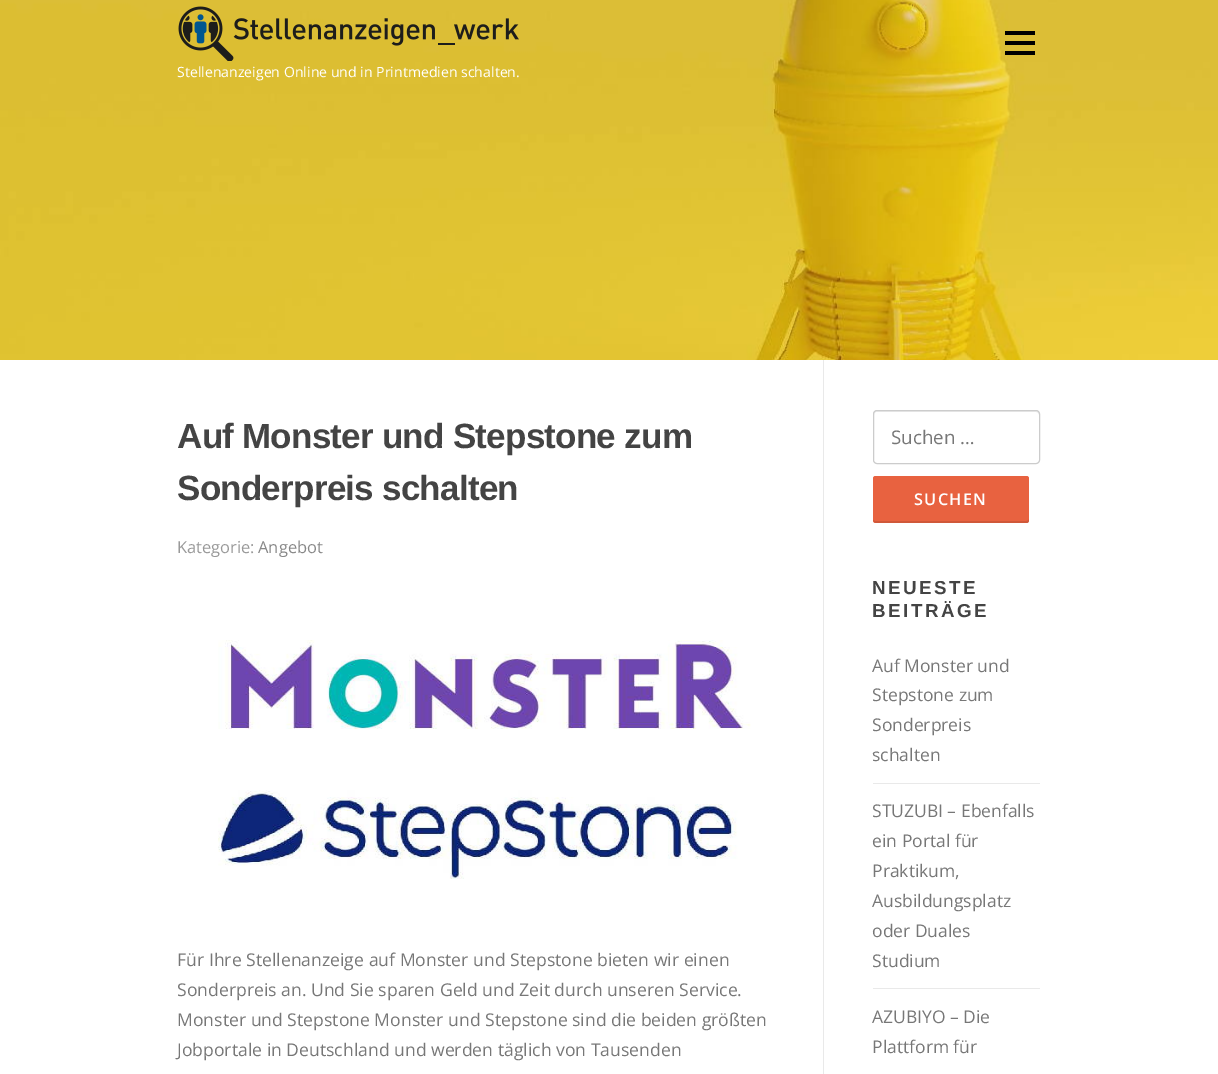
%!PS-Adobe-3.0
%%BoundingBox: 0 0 1218 1074
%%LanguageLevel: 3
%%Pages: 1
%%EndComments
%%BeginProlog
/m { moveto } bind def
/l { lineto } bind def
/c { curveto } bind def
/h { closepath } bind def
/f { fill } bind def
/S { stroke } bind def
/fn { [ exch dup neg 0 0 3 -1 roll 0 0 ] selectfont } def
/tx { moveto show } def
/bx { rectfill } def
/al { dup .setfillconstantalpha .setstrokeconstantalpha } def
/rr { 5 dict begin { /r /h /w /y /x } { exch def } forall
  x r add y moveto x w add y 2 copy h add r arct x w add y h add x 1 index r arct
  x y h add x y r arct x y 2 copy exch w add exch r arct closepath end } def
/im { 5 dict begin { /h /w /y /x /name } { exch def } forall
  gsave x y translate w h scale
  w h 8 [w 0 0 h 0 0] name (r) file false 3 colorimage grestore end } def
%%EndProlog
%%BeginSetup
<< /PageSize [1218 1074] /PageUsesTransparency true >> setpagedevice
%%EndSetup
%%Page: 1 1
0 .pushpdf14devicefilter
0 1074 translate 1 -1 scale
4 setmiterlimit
1 setgray
0 0 1218 1074 bx
(image0.raw) 0 0 1218 360 im
0 setgray
1005 41 30 4 bx
1005 31 30 4 bx
1005 51 30 4 bx
(image1.raw) 178 6 341 55 im
/OpenSans-Regular 14.1 fn
1 setgray
(Stellenanzeigen Online und in Printmedien schalten.) 177 77 tx
0.914 setgray
823 360 1 714 bx
/LiberationSans-Bold 35 fn
0.267 setgray
177 448 m -0.75 0 (Auf Monster und Stepstone zum) ashow
177 500 m -0.75 0 (Sonderpreis schalten) ashow
/OpenSans-Regular 16.5 fn
0.6 setgray
(Kategorie:) 177 553 tx
0.533 setgray
(Angebot) 258 553 tx
(image2.raw) 218 640 533 239 im
/OpenSans-Regular 17.6 fn
0.467 setgray
(Für Ihre Stellenanzeige auf Monster und Stepstone bieten wir einen) 177 966 tx
(Sonderpreis an. Und Sie sparen Geld und Zeit durch unseren Service.) 177 996 tx
(Monster und Stepstone Monster und Stepstone sind die beiden größten) 177 1026 tx
(Jobportale in Deutschland und werden täglich von Tausenden) 177 1056 tx
0.922 setgray
876 412 m 1036 412 l 1038 412 1039 414 1039 415 c 1039 413 1039 411 1036 411 c 876 411 l 874 411 874 413 874 415 c 874 414 875 412 876 412 c h f
0.8 setgray
873.5 410.5 166 53 3.5 rr S
/OpenSans-Regular 18.75 fn
0.467 setgray
(Suchen …) 891 444 tx
0.91 0.384 0.251 setrgbcolor
873 476 156 47 2.5 rr f
0.1 al
0 setgray
873 520 m 874 522 l 876 523 l 1027 523 l 1029 523 1029 521 1029 519 c 1029 520 1028 521 1026 521 c 875 521 l h f
/OpenSans-SemiBold 16.25 fn
1 al
1 setgray
914 505 m 1.25 0 (SUCHEN) ashow
/LiberationSans-Bold 18.75 fn
0.267 setgray
872 594 m 2.5 0 (NEUESTE) ashow
872 617 m 2.5 0 (BEITRÄGE) ashow
0.914 setgray
873 783 167 1 bx
/OpenSans-Regular 17.5 fn
0.467 setgray
(Auf Monster und) 872 672 tx
(Stepstone zum) 872 701 tx
(Sonderpreis) 872 731 tx
(schalten) 872 761 tx
0.914 setgray
873 988 167 1 bx
0.467 setgray
(STUZUBI – Ebenfalls) 872 817 tx
(ein Portal für) 872 847 tx
(Praktikum,) 872 877 tx
(Ausbildungsplatz) 872 907 tx
(oder Duales) 872 937 tx
(Studium) 872 967 tx
(AZUBIYO – Die) 872 1023 tx
(Plattform für) 872 1053 tx
.poppdf14devicefilter showpage
%%EOF
